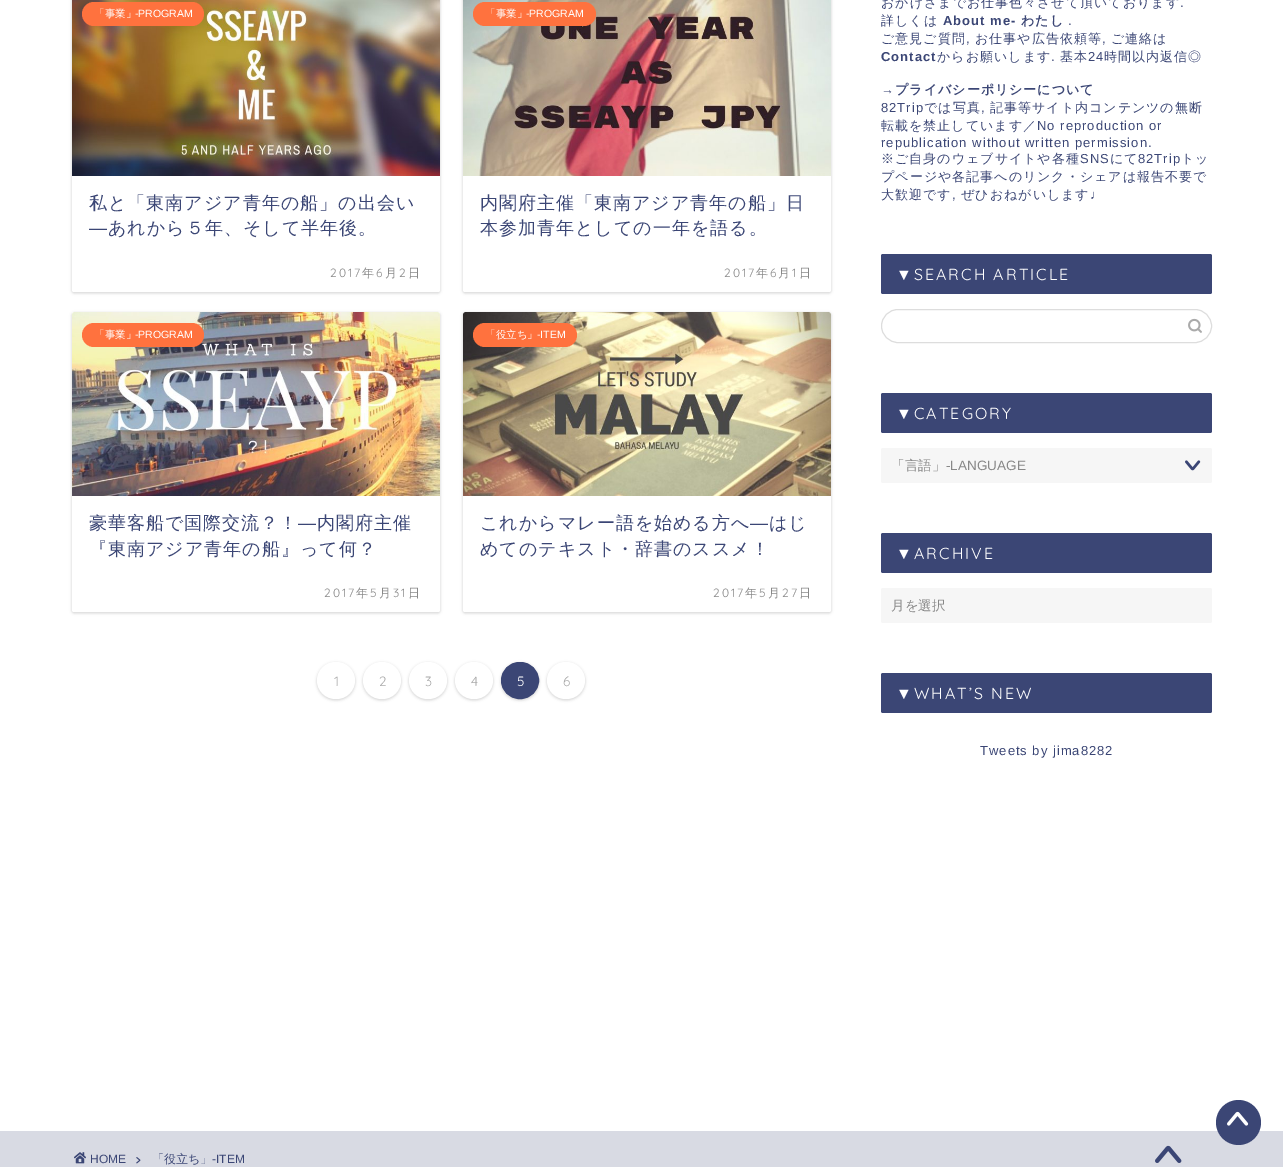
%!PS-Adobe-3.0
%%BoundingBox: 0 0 1283 1167
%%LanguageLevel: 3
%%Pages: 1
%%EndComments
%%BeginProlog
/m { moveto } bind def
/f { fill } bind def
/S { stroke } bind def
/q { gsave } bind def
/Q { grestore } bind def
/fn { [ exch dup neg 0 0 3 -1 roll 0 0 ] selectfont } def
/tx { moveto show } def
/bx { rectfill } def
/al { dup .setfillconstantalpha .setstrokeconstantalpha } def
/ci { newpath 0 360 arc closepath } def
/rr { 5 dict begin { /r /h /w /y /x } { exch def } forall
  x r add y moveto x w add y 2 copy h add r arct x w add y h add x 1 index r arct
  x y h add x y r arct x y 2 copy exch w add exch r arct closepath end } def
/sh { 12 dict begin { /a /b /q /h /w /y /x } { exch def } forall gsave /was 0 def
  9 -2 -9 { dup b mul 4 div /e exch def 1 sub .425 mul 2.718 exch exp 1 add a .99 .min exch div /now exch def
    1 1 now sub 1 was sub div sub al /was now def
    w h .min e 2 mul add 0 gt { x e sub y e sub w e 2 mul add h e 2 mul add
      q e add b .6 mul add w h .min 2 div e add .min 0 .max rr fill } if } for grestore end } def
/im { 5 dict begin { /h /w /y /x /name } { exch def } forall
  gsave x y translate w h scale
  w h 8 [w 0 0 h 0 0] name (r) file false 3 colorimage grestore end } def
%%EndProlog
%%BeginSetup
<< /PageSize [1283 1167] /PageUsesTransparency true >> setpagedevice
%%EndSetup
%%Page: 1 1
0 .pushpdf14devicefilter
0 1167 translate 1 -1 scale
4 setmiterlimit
1 setgray
0 0 1283 1167 bx
0 setgray
72 -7 368 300 2 1.5 0.18 sh
1 setgray
72 -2 368 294 2 rr f
(image0.raw) 72 0 368 176 im
1 0.447 0.243 setrgbcolor
82 2 122 24 12 rr f
/WenQuanYiZenHei-Medium 10.5 fn
1 setgray
(「事業」) 94 17 tx
/LiberationSans-Regular 10.5 fn
(-PROGRAM) 135 17 tx
/WenQuanYiZenHei-Medium 18 fn
0.231 0.275 0.459 setrgbcolor
89 209 m 1 0 (私と「東南アジア青年の船」の出会い) ashow
/LiberationSans-Regular 18 fn
89 234 m 1 0 (―) ashow
/WenQuanYiZenHei-Medium 18 fn
108 234 m 1 0 (あれから５年、そして半年後。) ashow
/Quicksand-Light 12 fn
0.533 setgray
330 277 m 2 0 (2017) ashow
/WenQuanYiZenHei-Medium 12 fn
362 277 m 2 0 (年) ashow
/Quicksand-Light 12 fn
376 277 m 2 0 (6) ashow
/WenQuanYiZenHei-Medium 12 fn
385 277 m 2 0 (月) ashow
/Quicksand-Light 12 fn
399 277 m 2 0 (2) ashow
/WenQuanYiZenHei-Medium 12 fn
408 277 m 2 0 (日) ashow
0 setgray
463 -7 368 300 2 1.5 0.18 sh
1 setgray
463 -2 368 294 2 rr f
(image1.raw) 463 0 368 176 im
1 0.447 0.243 setrgbcolor
473 2 123 24 12 rr f
/WenQuanYiZenHei-Medium 10.5 fn
1 setgray
(「事業」) 485 17 tx
/LiberationSans-Regular 10.5 fn
(-PROGRAM) 526 17 tx
/WenQuanYiZenHei-Medium 18 fn
0.231 0.275 0.459 setrgbcolor
480 209 m 1 0 (内閣府主催「東南アジア青年の船」日) ashow
480 234 m 1 0 (本参加青年としての一年を語る。) ashow
/Quicksand-Light 12 fn
0.533 setgray
724 277 m 2 0 (2017) ashow
/WenQuanYiZenHei-Medium 12 fn
756 277 m 2 0 (年) ashow
/Quicksand-Light 12 fn
770 277 m 2 0 (6) ashow
/WenQuanYiZenHei-Medium 12 fn
778 277 m 2 0 (月) ashow
/Quicksand-Light 12 fn
792 277 m 2 0 (1) ashow
/WenQuanYiZenHei-Medium 12 fn
799 277 m 2 0 (日) ashow
0 setgray
72 313 368 300 2 1.5 0.18 sh
1 setgray
72 312 368 300 2 rr f
(image2.raw) 72 312 368 184 im
1 0.447 0.243 setrgbcolor
82 323 122 24 12 rr f
/WenQuanYiZenHei-Medium 10.5 fn
1 setgray
(「事業」) 94 338 tx
/LiberationSans-Regular 10.5 fn
(-PROGRAM) 135 338 tx
/WenQuanYiZenHei-Medium 18 fn
0.231 0.275 0.459 setrgbcolor
89 529 m 1 0 (豪華客船で国際交流？！) ashow
/LiberationSans-Regular 18 fn
298 529 m 1 0 (―) ashow
/WenQuanYiZenHei-Medium 18 fn
317 529 m 1 0 (内閣府主催) ashow
89 555 m 1 0 (『東南アジア青年の船』って何？) ashow
/Quicksand-Light 12 fn
0.533 setgray
324 597 m 2 0 (2017) ashow
/WenQuanYiZenHei-Medium 12 fn
356 597 m 2 0 (年) ashow
/Quicksand-Light 12 fn
370 597 m 2 0 (5) ashow
/WenQuanYiZenHei-Medium 12 fn
379 597 m 2 0 (月) ashow
/Quicksand-Light 12 fn
393 597 m 2 0 (31) ashow
/WenQuanYiZenHei-Medium 12 fn
408 597 m 2 0 (日) ashow
0 setgray
463 313 368 300 2 1.5 0.18 sh
1 setgray
463 312 368 300 2 rr f
(image3.raw) 463 312 368 184 im
1 0.447 0.243 setrgbcolor
473 323 104 24 12 rr f
/WenQuanYiZenHei-Medium 10.5 fn
1 setgray
(「役立ち」) 485 338 tx
/LiberationSans-Regular 10.5 fn
(-ITEM) 537 338 tx
/WenQuanYiZenHei-Medium 18 fn
0.231 0.275 0.459 setrgbcolor
480 529 m 1 0 (これからマレー語を始める方へ) ashow
/LiberationSans-Regular 18 fn
750 529 m 1 0 (―) ashow
/WenQuanYiZenHei-Medium 18 fn
769 529 m 1 0 (はじ) ashow
480 555 m 1 0 (めてのテキスト・辞書のススメ！) ashow
/Quicksand-Light 12 fn
0.533 setgray
713 597 m 2 0 (2017) ashow
/WenQuanYiZenHei-Medium 12 fn
745 597 m 2 0 (年) ashow
/Quicksand-Light 12 fn
759 597 m 2 0 (5) ashow
/WenQuanYiZenHei-Medium 12 fn
768 597 m 2 0 (月) ashow
/Quicksand-Light 12 fn
782 597 m 2 0 (27) ashow
/WenQuanYiZenHei-Medium 12 fn
799 597 m 2 0 (日) ashow
0 setgray
317 663 38 37 18.5 1.5 0.18 sh
1 setgray
317 662 38 37 18.5 rr f
/Quicksand-Light 13.5 fn
0.667 setgray
334 686 m 2 0 (1) ashow
0 setgray
363 663 38 37 18.5 1.5 0.18 sh
1 setgray
363 662 38 37 18.5 rr f
0.667 setgray
379 686 m 2 0 (2) ashow
0 setgray
409 663 38 37 18.5 1.5 0.18 sh
1 setgray
409 662 38 37 18.5 rr f
0.667 setgray
425 686 m 2 0 (3) ashow
0 setgray
455 663 38 37 18.5 1.5 0.18 sh
1 setgray
455 662 38 37 18.5 rr f
0.667 setgray
471 686 m 2 0 (4) ashow
0 setgray
501 663 38 37 18.5 1.5 0.18 sh
0.231 0.275 0.459 setrgbcolor
501.5 662.5 37 36 18 rr q f Q
S
1 setgray
517 686 m 2 0 (5) ashow
0 setgray
547 663 38 37 18.5 1.5 0.18 sh
1 setgray
547 662 38 37 18.5 rr f
0.667 setgray
563 686 m 2 0 (6) ashow
/WenQuanYiZenHei-Medium 13 fn
0.231 0.275 0.459 setrgbcolor
881 7 m 1 0 (おかげさまでお仕事色々させて頂いております) ashow
/LiberationSans-Regular 13 fn
1180 7 m 1 0 (.) ashow
/WenQuanYiZenHei-Medium 13 fn
881 25 m 1 0 (詳しくは) ashow
/LiberationSans-Bold 13 fn
943 25 m 1 0 (About me-) ashow
/WenQuanYiZenHei-Bold 13 fn
1021 25 m 1 0 (わたし) ashow
/LiberationSans-Regular 13 fn
1068 25 m 1 0 (.) ashow
/WenQuanYiZenHei-Medium 13 fn
881 43 m 1 0 (ご意見ご質問) ashow
/LiberationSans-Regular 13 fn
966 43 m 1 0 (,) ashow
/WenQuanYiZenHei-Medium 13 fn
975 43 m 1 0 (お仕事や広告依頼等) ashow
/LiberationSans-Regular 13 fn
1102 43 m 1 0 (,) ashow
/WenQuanYiZenHei-Medium 13 fn
1111 43 m 1 0 (ご連絡は) ashow
/LiberationSans-Bold 13 fn
881 61 m 1 0 (Contact) ashow
/WenQuanYiZenHei-Medium 13 fn
937 61 m 1 0 (からお願いします) ashow
/LiberationSans-Regular 13 fn
1051 61 m 1 0 (.) ashow
/WenQuanYiZenHei-Medium 13 fn
1060 61 m 1 0 (基本) ashow
/LiberationSans-Regular 13 fn
1088 61 m 1 0 (24) ashow
/WenQuanYiZenHei-Medium 13 fn
1104 61 m 1 0 (時間以内返信◎) ashow
/LiberationSans-Bold 13 fn
881 94 m 1 0 (→) ashow
/WenQuanYiZenHei-Bold 13 fn
895 94 m 1 0 (プライバシーポリシーについて) ashow
/LiberationSans-Regular 13 fn
881 112 m 1 0 (82Trip) ashow
/WenQuanYiZenHei-Medium 13 fn
924 112 m 1 0 (では写真) ashow
/LiberationSans-Regular 13 fn
981 112 m 1 0 (,) ashow
/WenQuanYiZenHei-Medium 13 fn
990 112 m 1 0 (記事等サイト内コンテンツの無断) ashow
881 130 m 1 0 (転載を禁止しています／) ashow
/LiberationSans-Regular 13 fn
1037 130 m 1 0 (No reproduction or) ashow
881 147 m 1 0 (republication without written permission.) ashow
/WenQuanYiZenHei-Medium 13 fn
881 163 m 1 0 (※ご自身のウェブサイトや各種) ashow
/LiberationSans-Regular 13 fn
1080 163 m 1 0 (SNS) ashow
/WenQuanYiZenHei-Medium 13 fn
1110 163 m 1 0 (にて) ashow
/LiberationSans-Regular 13 fn
1138 163 m 1 0 (82Trip) ashow
/WenQuanYiZenHei-Medium 13 fn
1181 163 m 1 0 (トッ) ashow
881 181 m 1 0 (プページや各記事へのリンク・シェアは報告不要で) ashow
881 199 m 1 0 (大歓迎です) ashow
/LiberationSans-Regular 13 fn
952 199 m 1 0 (,) ashow
/WenQuanYiZenHei-Medium 13 fn
961 199 m 1 0 (ぜひおねがいします) ashow
/LiberationSans-Regular 13 fn
1090 199 m 1 0 (♩) ashow
881 254 331 40 2 rr f
/LiberationSans-Regular 16 fn
1 setgray
896 280 m 2 0 (▼) ashow
/Quicksand-Light 16 fn
914 280 m 2 0 (SEARCH ARTICLE) ashow
0.867 setgray
881.5 309.5 330 33 16.5 rr S
(image4.raw) 1188 318 14 15 im
0.231 0.275 0.459 setrgbcolor
881 393 331 40 2 rr f
/LiberationSans-Regular 16 fn
1 setgray
896 419 m 2 0 (▼) ashow
/Quicksand-Light 16 fn
914 419 m 2 0 (CATEGORY) ashow
0.965 setgray
881 448 331 35 2 rr f
/WenQuanYiZenHei-Medium 13.5 fn
0.533 setgray
(「言語」) 891 470 tx
/LiberationSans-Regular 13.5 fn
(-LANGUAGE) 946 470 tx
(image5.raw) 1185 460 16 11 im
0.231 0.275 0.459 setrgbcolor
881 533 331 40 2 rr f
/LiberationSans-Regular 16 fn
1 setgray
896 559 m 2 0 (▼) ashow
/Quicksand-Light 16 fn
914 559 m 2 0 (ARCHIVE) ashow
0.965 setgray
881 588 331 35 2 rr f
/WenQuanYiZenHei-Medium 13.5 fn
0.533 setgray
(月を選択) 891 610 tx
0.231 0.275 0.459 setrgbcolor
881 673 331 40 2 rr f
/LiberationSans-Regular 16 fn
1 setgray
896 699 m 2 0 (▼) ashow
/Quicksand-Light 16 fn
914 699 m 2 0 (WHAT’S NEW) ashow
/LiberationSans-Regular 13 fn
0.231 0.275 0.459 setrgbcolor
980 755 m 1 0 (Tweets by jima8282) ashow
0.847 0.855 0.89 setrgbcolor
0 1131 1283 36 bx
(image6.raw) 74 1152 12 12 im
/LiberationSans-Regular 12 fn
0.231 0.275 0.459 setrgbcolor
(HOME) 90 1163 tx
(image7.raw) 136 1157 5 7 im
/WenQuanYiZenHei-Medium 12 fn
(「役立ち」) 152 1163 tx
/LiberationSans-Regular 12 fn
(-ITEM) 212 1163 tx
(image8.raw) 1155 1145 27 18 im
1238.5 1122.5 22.5 ci f
(image9.raw) 1227 1111 22 15 im
.poppdf14devicefilter showpage
%%EOF
